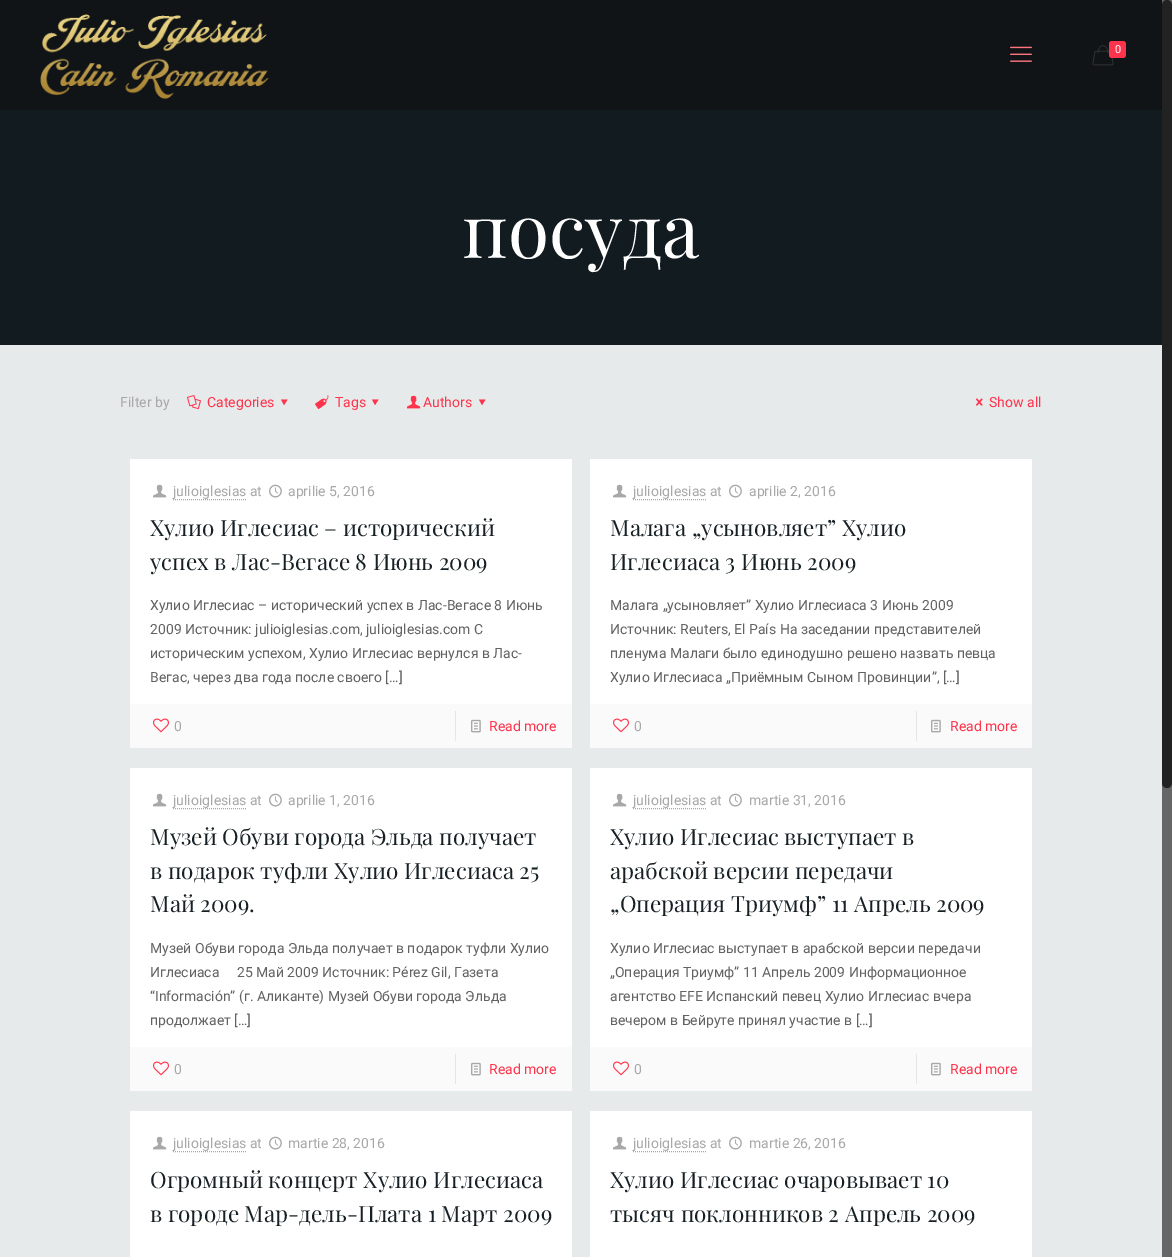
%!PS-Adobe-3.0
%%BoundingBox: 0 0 1172 1257
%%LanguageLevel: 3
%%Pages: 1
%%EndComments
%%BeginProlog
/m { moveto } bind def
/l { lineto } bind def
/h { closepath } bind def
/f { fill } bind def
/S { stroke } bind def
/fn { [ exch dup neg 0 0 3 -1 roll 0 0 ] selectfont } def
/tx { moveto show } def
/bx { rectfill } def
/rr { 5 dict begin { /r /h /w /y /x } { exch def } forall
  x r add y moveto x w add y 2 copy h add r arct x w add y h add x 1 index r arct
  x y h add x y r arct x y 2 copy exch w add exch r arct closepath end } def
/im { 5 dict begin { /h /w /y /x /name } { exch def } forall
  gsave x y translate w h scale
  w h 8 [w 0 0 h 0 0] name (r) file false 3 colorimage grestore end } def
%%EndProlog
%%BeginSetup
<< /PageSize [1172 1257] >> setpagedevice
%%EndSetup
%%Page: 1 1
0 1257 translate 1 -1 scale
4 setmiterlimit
0.902 0.918 0.922 setrgbcolor
0 0 1172 1257 bx
0.067 0.106 0.125 setrgbcolor
0 110 1162 235 bx
0.063 0.078 0.09 setrgbcolor
0 0 1162 110 bx
(image0.raw) 40 14 229 85 im
(image1.raw) 1010 46 22 16 im
(image2.raw) 1092 45 22 21 im
1 0.2 0.294 setrgbcolor
1109 41 17 17 3 rr f
/Roboto-Regular 11 fn
1 setgray
(0) 1115 53 tx
/PlayfairDisplay-Regular 75 fn
(посуда) 462 258 tx
/Roboto-Regular 14 fn
0.659 setgray
(Filter by) 120 407 tx
(image3.raw) 187 395 14 15 im
1 0.2 0.294 setrgbcolor
(Categories) 207 407 tx
287.5 399.5 m 284 405 l 281 399.5 l h f
(image4.raw) 315 395 14 14 im
(Tags) 335 407 tx
378.5 399.5 m 375 405 l 372 399.5 l h f
(image5.raw) 407 395 14 14 im
(Authors) 423 407 tx
485.5 399.5 m 482 405 l 479 399.5 l h f
(image6.raw) 976 398 7 8 im
(Show all) 989 407 tx
1 setgray
130 459 442 245 bx
(image7.raw) 153 484 14 14 im
0.659 setgray
(julioiglesias at) 173 496 tx
[1 1] 0 setdash
173 499.5 m 246 499.5 l S
(image8.raw) 269 484 13 14 im
(aprilie 5, 2016) 288 496 tx
/PlayfairDisplay-Regular 22.4 fn
0.09 0.125 0.145 setrgbcolor
(Хулио Иглесиас – исторический) 150 536 tx
(успех в Лас-Вегасе 8 Июнь 2009) 150 570 tx
/Roboto-Regular 14 fn
0.384 setgray
(Хулио Иглесиас – исторический успех в Лас-Вегасе 8 Июнь) 150 610 tx
(2009 Источник: julioiglesias.com, julioiglesias.com С) 150 634 tx
(историческим успехом, Хулио Иглесиас вернулся в Лас-) 150 658 tx
(Вегас, через два года после своего […]) 150 682 tx
0.98 setgray
130 704 442 44 bx
(image9.raw) 153 718 16 15 im
0.659 setgray
(0) 174 731 tx
0.902 setgray
455 711 1 30 bx
(image10.raw) 471 719 10 14 im
1 0.2 0.294 setrgbcolor
(Read more) 489 731 tx
1 setgray
590 459 442 245 bx
(image7.raw) 613 484 14 14 im
0.659 setgray
(julioiglesias at) 633 496 tx
633 499.5 m 707 499.5 l S
(image8.raw) 729 484 13 14 im
(aprilie 2, 2016) 749 496 tx
/PlayfairDisplay-Regular 22.4 fn
0.09 0.125 0.145 setrgbcolor
(Малага „усыновляет” Хулио) 610 536 tx
(Иглесиаса 3 Июнь 2009) 610 570 tx
/Roboto-Regular 14 fn
0.384 setgray
(Малага „усыновляет” Хулио Иглесиаса 3 Июнь 2009) 610 610 tx
(Источник: Reuters, El País На заседании представителей) 610 634 tx
(пленума Малаги было единодушно решено назвать певца) 610 658 tx
(Хулио Иглесиаса „Приёмным Сыном Провинции”, […]) 610 682 tx
0.98 setgray
590 704 442 44 bx
(image9.raw) 613 718 16 15 im
0.659 setgray
(0) 634 731 tx
0.902 setgray
916 711 1 30 bx
(image10.raw) 931 719 10 14 im
1 0.2 0.294 setrgbcolor
(Read more) 950 731 tx
1 setgray
130 768 442 279 bx
(image7.raw) 153 793 14 14 im
0.659 setgray
(julioiglesias at) 173 805 tx
173 808.5 m 246 808.5 l S
(image8.raw) 269 793 13 14 im
(aprilie 1, 2016) 288 805 tx
/PlayfairDisplay-Regular 22.4 fn
0.09 0.125 0.145 setrgbcolor
(Музей Обуви города Эльда получает) 150 845 tx
(в подарок туфли Хулио Иглесиаса 25) 150 879 tx
(Май 2009.) 150 912 tx
/Roboto-Regular 14 fn
0.384 setgray
(Музей Обуви города Эльда получает в подарок туфли Хулио) 150 953 tx
(Иглесиаса     25 Май 2009 Источник: Pérez Gil, Газета) 150 977 tx
(“Información” \(г. Аликанте\) Музей Обуви города Эльда) 150 1001 tx
(продолжает […]) 150 1025 tx
0.98 setgray
130 1047 442 44 bx
(image9.raw) 153 1061 16 15 im
0.659 setgray
(0) 174 1074 tx
0.902 setgray
455 1054 1 30 bx
(image10.raw) 471 1062 10 14 im
1 0.2 0.294 setrgbcolor
(Read more) 489 1074 tx
1 setgray
590 768 442 279 bx
(image7.raw) 613 793 14 14 im
0.659 setgray
(julioiglesias at) 633 805 tx
633 808.5 m 707 808.5 l S
(image8.raw) 729 793 13 14 im
(martie 31, 2016) 749 805 tx
/PlayfairDisplay-Regular 22.4 fn
0.09 0.125 0.145 setrgbcolor
(Хулио Иглесиас выступает в) 610 845 tx
(арабской версии передачи) 610 879 tx
(„Операция Триумф” 11 Апрель 2009) 610 912 tx
/Roboto-Regular 14 fn
0.384 setgray
(Хулио Иглесиас выступает в арабской версии передачи) 610 953 tx
(„Операция Триумф” 11 Апрель 2009 Информационное) 610 977 tx
(агентство EFE Испанский певец Хулио Иглесиас вчера) 610 1001 tx
(вечером в Бейруте принял участие в […]) 610 1025 tx
0.98 setgray
590 1047 442 44 bx
(image9.raw) 613 1061 16 15 im
0.659 setgray
(0) 634 1074 tx
0.902 setgray
916 1054 1 30 bx
(image10.raw) 931 1062 10 14 im
1 0.2 0.294 setrgbcolor
(Read more) 950 1074 tx
1 setgray
130 1111 442 146 bx
(image7.raw) 153 1136 14 14 im
0.659 setgray
(julioiglesias at) 173 1148 tx
173 1151.5 m 246 1151.5 l S
(image8.raw) 269 1136 13 14 im
(martie 28, 2016) 288 1148 tx
/PlayfairDisplay-Regular 22.4 fn
0.09 0.125 0.145 setrgbcolor
(Огромный концерт Хулио Иглесиаса) 150 1188 tx
(в городе Мар-дель-Плата 1 Март 2009) 150 1222 tx
1 setgray
590 1111 442 146 bx
(image7.raw) 613 1136 14 14 im
/Roboto-Regular 14 fn
0.659 setgray
(julioiglesias at) 633 1148 tx
633 1151.5 m 707 1151.5 l S
(image8.raw) 729 1136 13 14 im
(martie 26, 2016) 749 1148 tx
/PlayfairDisplay-Regular 22.4 fn
0.09 0.125 0.145 setrgbcolor
(Хулио Иглесиас очаровывает 10) 610 1188 tx
(тысяч поклонников 2 Апрель 2009) 610 1222 tx
0.4 setgray
1162 0 10 1257 bx
0.133 setgray
1162 0 10 788 5 rr f
showpage
%%EOF
